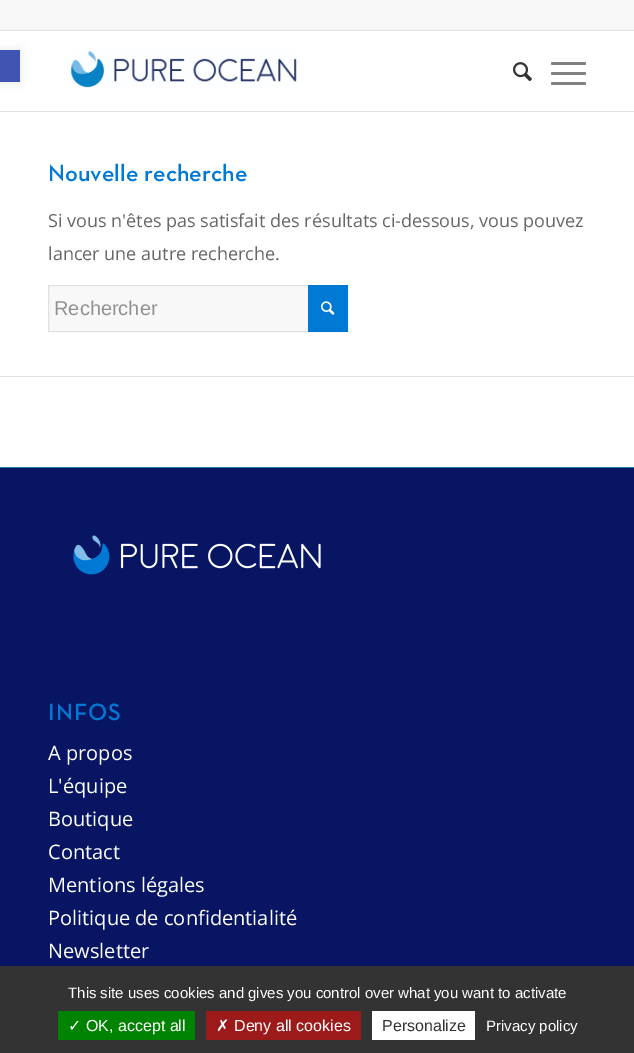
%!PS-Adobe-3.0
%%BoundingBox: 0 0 634 1053
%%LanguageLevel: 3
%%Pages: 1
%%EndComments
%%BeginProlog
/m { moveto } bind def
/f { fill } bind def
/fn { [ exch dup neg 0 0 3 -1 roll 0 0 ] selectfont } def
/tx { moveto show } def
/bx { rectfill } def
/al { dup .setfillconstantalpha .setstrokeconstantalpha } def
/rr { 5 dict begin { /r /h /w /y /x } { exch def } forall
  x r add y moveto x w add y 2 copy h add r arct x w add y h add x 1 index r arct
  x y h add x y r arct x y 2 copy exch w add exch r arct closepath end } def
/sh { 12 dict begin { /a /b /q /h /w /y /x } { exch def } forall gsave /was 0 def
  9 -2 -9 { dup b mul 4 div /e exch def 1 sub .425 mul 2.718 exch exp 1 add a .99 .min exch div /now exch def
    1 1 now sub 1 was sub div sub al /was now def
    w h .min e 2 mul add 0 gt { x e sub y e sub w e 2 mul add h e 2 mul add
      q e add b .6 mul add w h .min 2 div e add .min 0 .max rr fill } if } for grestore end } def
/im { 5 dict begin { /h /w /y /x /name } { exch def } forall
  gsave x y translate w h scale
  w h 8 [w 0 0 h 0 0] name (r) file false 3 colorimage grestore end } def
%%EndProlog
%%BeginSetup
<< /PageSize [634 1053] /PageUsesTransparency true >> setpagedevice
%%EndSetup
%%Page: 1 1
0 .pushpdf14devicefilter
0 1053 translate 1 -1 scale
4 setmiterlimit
1 setgray
0 0 634 1053 bx
0 setgray
0 50 20 32 0 5 0.1 sh
0.251 0.329 0.698 setrgbcolor
0 50 20 32 bx
0.973 setgray
0 0 634 30 bx
0.882 setgray
0 30 634 1 bx
0 111 634 1 bx
(image0.raw) 70 50 227 38 im
(image1.raw) 513 62 19 20 im
0.502 setgray
551 72 35 3 1.5 rr f
551 62 35 3 1.5 rr f
551 82 35 3 1.5 rr f
/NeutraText-Medium 24 fn
0 0.475 0.835 setrgbcolor
(Nouvelle recherche) 48 181 tx
/OpenSans-Regular 18 fn
0.4 setgray
(Si vous n'êtes pas satisfait des résultats ci-dessous, vous pouvez) 48 227 tx
(lancer une autre recherche.) 48 260 tx
0.973 setgray
49 286 259 45 bx
0.882 setgray
48.5 285.5 299 46 rectstroke
/LiberationSans-Regular 20 fn
0.569 setgray
(Rechercher) 54 315 tx
0 0.475 0.835 setrgbcolor
308 285 40 47 bx
(image2.raw) 321 301 14 14 im
0.882 setgray
0 376 634 1 bx
0.027 0.082 0.384 setrgbcolor
0 468 634 498 bx
0.059 0.506 0.631 setrgbcolor
0 467 634 1 bx
(image3.raw) 72 535 249 40 im
/NeutraText-Medium 24 fn
0 0.475 0.835 setrgbcolor
48 720 m 1 0 (INFOS) ashow
/OpenSans-Regular 20 fn
1 setgray
(A propos) 48 760 tx
(L'équipe) 48 793 tx
(Boutique) 48 826 tx
(Contact) 48 859 tx
(Mentions légales) 48 892 tx
(Politique de confidentialité) 48 925 tx
(Newsletter) 48 958 tx
0.2 setgray
0 966 634 87 bx
/LiberationSans-Regular 15 fn
1 setgray
(This site uses cookies and gives you control over what you want to activate) 68 998 tx
0 0.514 0 setrgbcolor
58 1011 137 29 bx
/DejaVuSans-Regular 16 fn
1 setgray
(✓) 68 1031 tx
/LiberationSans-Regular 16 fn
(OK, accept all) 86 1031 tx
0.612 0.102 0.102 setrgbcolor
206 1011 155 29 bx
/DejaVuSans-Regular 16 fn
1 setgray
(✗) 216 1031 tx
/LiberationSans-Regular 16 fn
(Deny all cookies) 234 1031 tx
372 1011 103 29 bx
0.2 setgray
(Personalize) 382 1031 tx
/LiberationSans-Regular 15 fn
1 setgray
(Privacy policy) 486 1031 tx
.poppdf14devicefilter showpage
%%EOF
